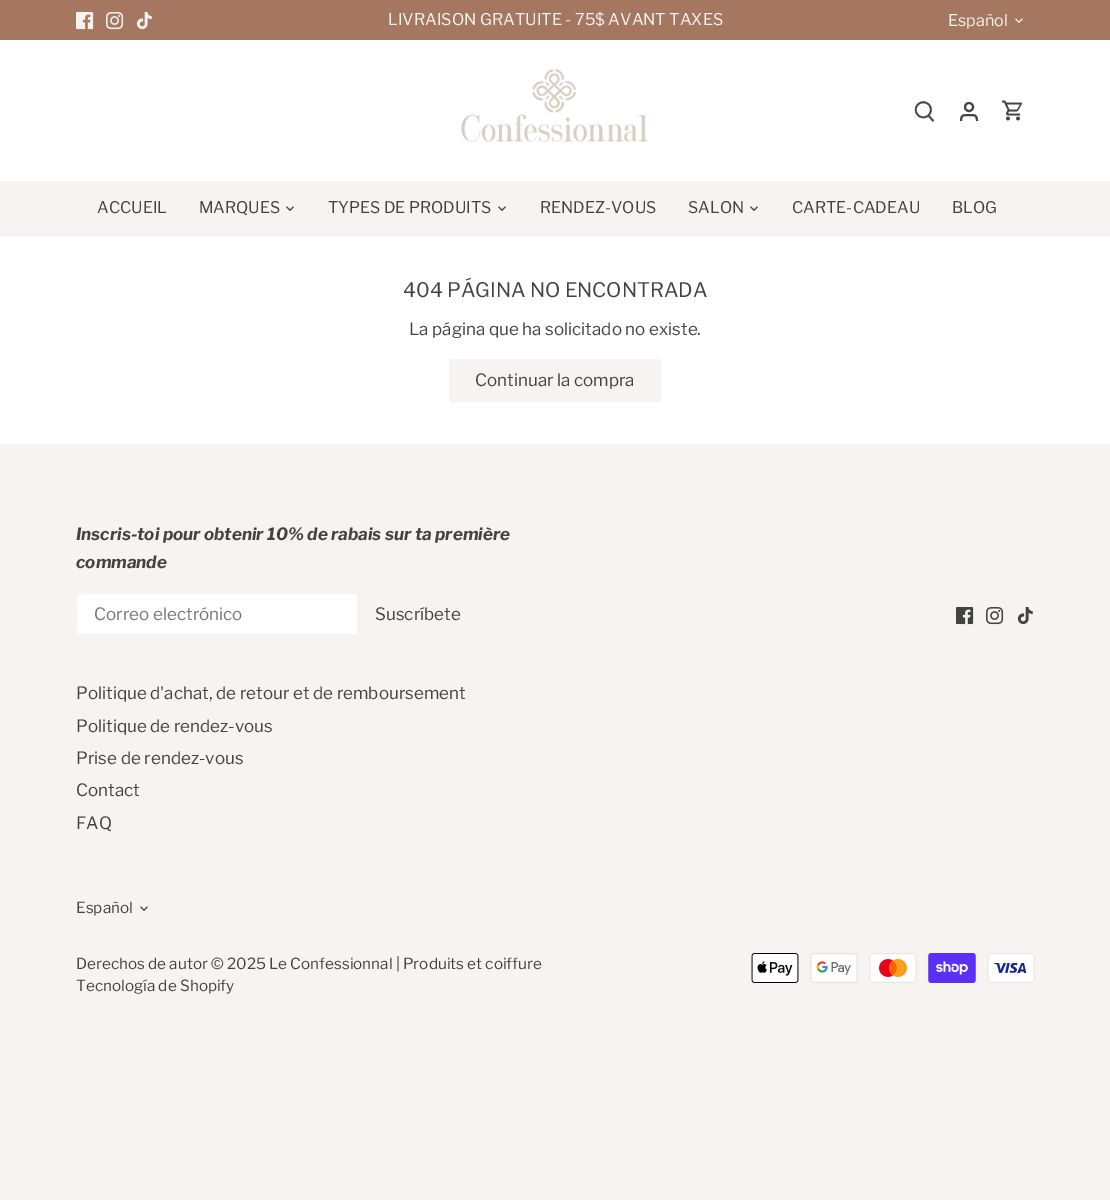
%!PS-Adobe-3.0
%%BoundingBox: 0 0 1110 1200
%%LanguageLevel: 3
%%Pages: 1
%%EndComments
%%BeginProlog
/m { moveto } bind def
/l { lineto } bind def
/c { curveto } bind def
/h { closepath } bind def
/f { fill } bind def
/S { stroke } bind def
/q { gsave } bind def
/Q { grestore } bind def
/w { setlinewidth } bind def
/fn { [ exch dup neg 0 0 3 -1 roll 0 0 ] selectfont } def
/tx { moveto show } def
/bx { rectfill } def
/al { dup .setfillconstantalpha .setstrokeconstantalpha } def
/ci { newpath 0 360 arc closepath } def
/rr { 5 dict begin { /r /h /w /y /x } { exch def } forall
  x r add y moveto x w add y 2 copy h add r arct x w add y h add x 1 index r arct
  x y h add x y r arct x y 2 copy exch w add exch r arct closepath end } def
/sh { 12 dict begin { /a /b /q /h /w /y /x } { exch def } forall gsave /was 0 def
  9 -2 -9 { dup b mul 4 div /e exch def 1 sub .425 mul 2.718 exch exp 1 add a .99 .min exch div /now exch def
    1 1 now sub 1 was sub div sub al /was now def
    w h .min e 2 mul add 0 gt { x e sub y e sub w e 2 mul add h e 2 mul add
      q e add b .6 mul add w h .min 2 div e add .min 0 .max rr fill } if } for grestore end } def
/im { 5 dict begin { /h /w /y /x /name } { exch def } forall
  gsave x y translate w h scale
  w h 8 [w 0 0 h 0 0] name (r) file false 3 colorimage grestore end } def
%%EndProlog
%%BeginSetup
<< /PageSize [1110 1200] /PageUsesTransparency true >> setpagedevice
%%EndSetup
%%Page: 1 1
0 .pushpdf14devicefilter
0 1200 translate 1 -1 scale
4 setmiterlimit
0.965 0.953 0.941 setrgbcolor
0 0 1110 1200 bx
1 setgray
0 234 1110 210 bx
0 setgray
-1 39 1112 196 0 1.5 0.08 sh
0.651 0.467 0.376 setrgbcolor
0 0 1110 40 bx
(image0.raw) 76 12 18 18 im
(image1.raw) 106 12 18 18 im
(image2.raw) 136 12 16 18 im
/LibreFranklin-Regular 16.15 fn
0.965 0.953 0.941 setrgbcolor
(LIVRAISON GRATUITE - 75$ AVANT TAXES) 388 25 tx
(Español) 948 26 tx
(image3.raw) 1015 18 8 5 im
0 181 1110 53 bx
1 setgray
0 40 1110 141 bx
(image4.raw) 461 68 187 74 im
(image5.raw) 914 101 21 21 im
0.267 0.259 0.251 setrgbcolor
2 w
969 107 4 ci S
977 121 m 977 114.5 974.5 115 969 115 c 963.5 115 961 114.5 961 121 c S
(image6.raw) 1002 100 20 21 im
/LibreFranklin-Regular 16 fn
(ACCUEIL) 97 213 tx
(MARQUES) 199 213 tx
(image7.raw) 286 206 8 5 im
(TYPES DE PRODUITS) 328 213 tx
(image7.raw) 498 206 8 5 im
(RENDEZ-VOUS) 540 213 tx
(SALON) 688 213 tx
(image7.raw) 750 206 8 5 im
(CARTE-CADEAU) 792 213 tx
(BLOG) 952 213 tx
/LibreFranklin-Regular 20 fn
(404 PÁGINA NO ENCONTRADA) 403 297 tx
/LibreFranklin-Regular 17 fn
(La página que ha solicitado no existe.) 409 335 tx
0.965 0.953 0.941 setrgbcolor
450 360 210 41 2 rr q f Q
S
0.267 0.259 0.251 setrgbcolor
(Continuar la compra) 475 386 tx
0.961 setgray
0 444 1110 1 bx
/LibreFranklin-BoldItalic 17 fn
0.267 0.259 0.251 setrgbcolor
(Inscris-toi pour obtenir 10% de rabais sur ta première) 76 540 tx
(commande) 76 568 tx
1 setgray
76.5 593.5 401 41 2.5 rr q f Q
0.965 0.953 0.941 setrgbcolor
1 w
S
/LibreFranklin-Regular 17 fn
0.459 setgray
(Correo electrónico) 94 620 tx
0.965 0.953 0.941 setrgbcolor
357 593 m 476 593 l 477.5 593 479 594.5 479 596 c 479 632 l 479 633.5 477.5 635 476 635 c 357 635 l h f
0.267 0.259 0.251 setrgbcolor
(Suscríbete) 375 620 tx
(image8.raw) 956 607 18 18 im
(image9.raw) 986 607 18 18 im
(image10.raw) 1017 607 16 18 im
(Politique d'achat, de retour et de remboursement) 76 699 tx
(Politique de rendez-vous) 76 732 tx
(Prise de rendez-vous) 76 764 tx
(Contact) 76 796 tx
(FAQ) 76 829 tx
/LibreFranklin-Regular 15.3 fn
(Español) 76 913 tx
(image7.raw) 140 906 8 5 im
(Derechos de autor © 2025 Le Confessionnal | Produits et coiffure) 76 969 tx
(Tecnología de Shopify) 76 991 tx
(image11.raw) 751 953 48 30 im
(image12.raw) 810 953 48 30 im
(image13.raw) 869 953 48 30 im
(image14.raw) 928 953 48 30 im
(image15.raw) 987 953 48 30 im
.poppdf14devicefilter showpage
%%EOF
